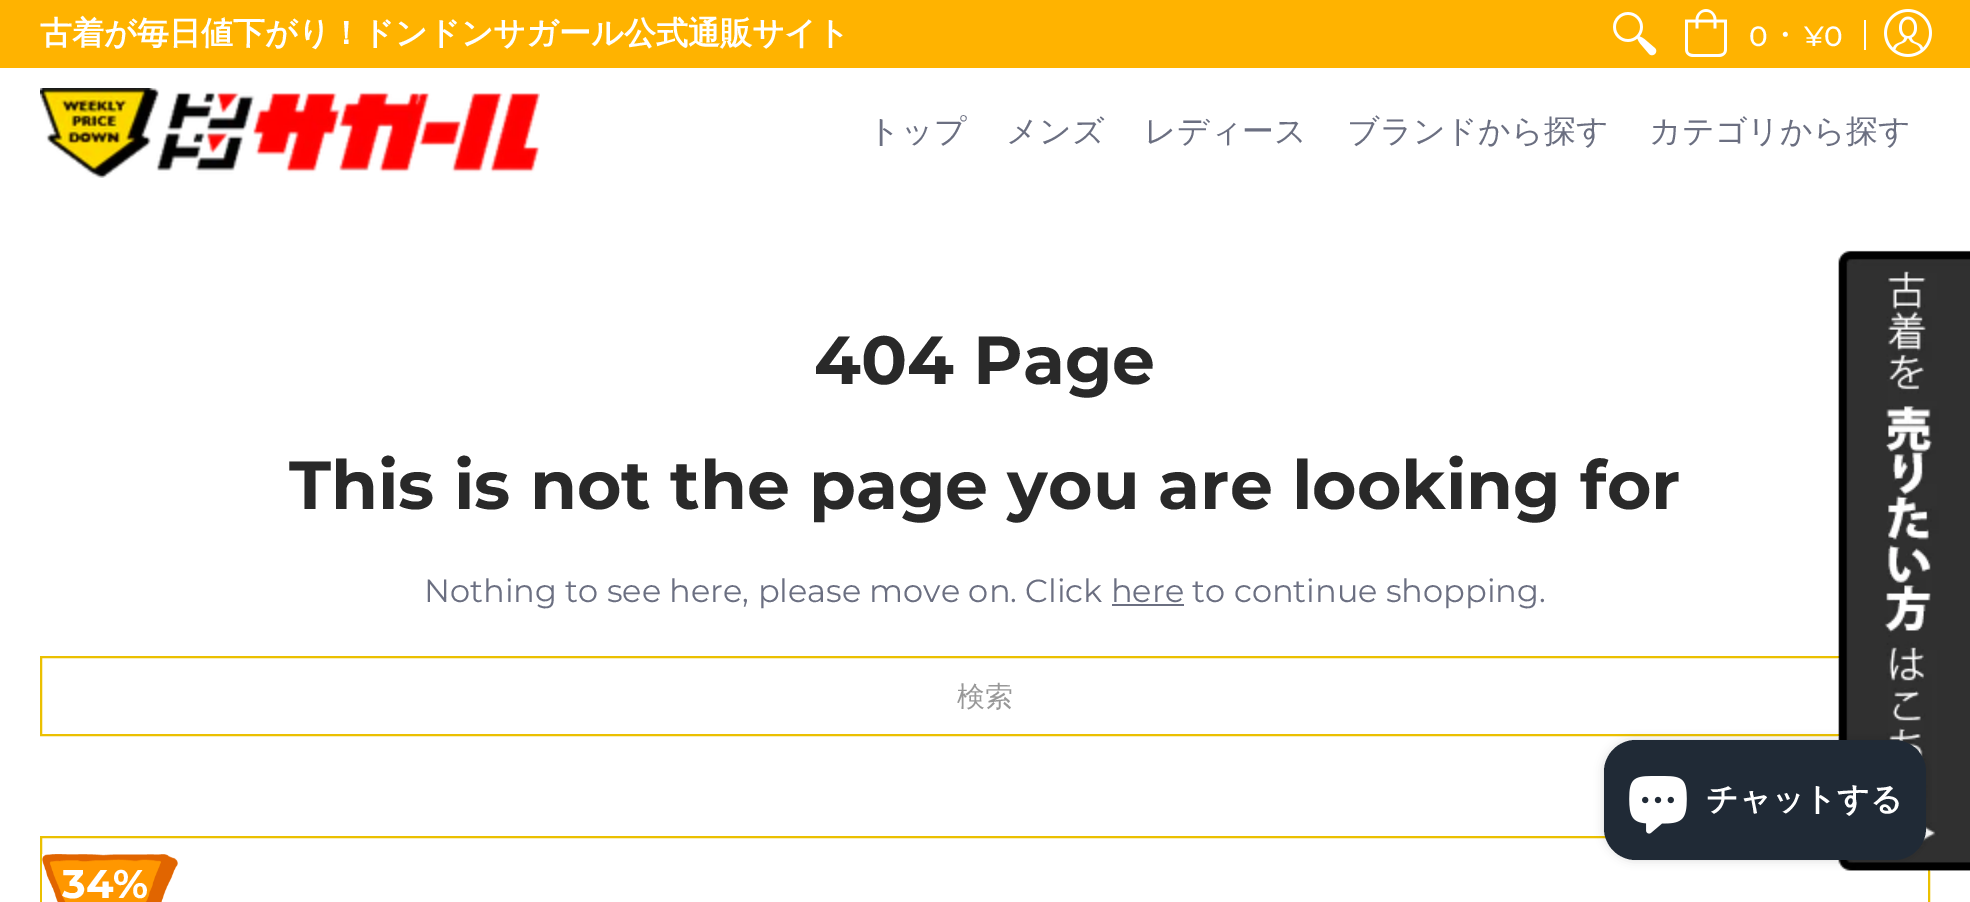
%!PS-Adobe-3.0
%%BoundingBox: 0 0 1970 902
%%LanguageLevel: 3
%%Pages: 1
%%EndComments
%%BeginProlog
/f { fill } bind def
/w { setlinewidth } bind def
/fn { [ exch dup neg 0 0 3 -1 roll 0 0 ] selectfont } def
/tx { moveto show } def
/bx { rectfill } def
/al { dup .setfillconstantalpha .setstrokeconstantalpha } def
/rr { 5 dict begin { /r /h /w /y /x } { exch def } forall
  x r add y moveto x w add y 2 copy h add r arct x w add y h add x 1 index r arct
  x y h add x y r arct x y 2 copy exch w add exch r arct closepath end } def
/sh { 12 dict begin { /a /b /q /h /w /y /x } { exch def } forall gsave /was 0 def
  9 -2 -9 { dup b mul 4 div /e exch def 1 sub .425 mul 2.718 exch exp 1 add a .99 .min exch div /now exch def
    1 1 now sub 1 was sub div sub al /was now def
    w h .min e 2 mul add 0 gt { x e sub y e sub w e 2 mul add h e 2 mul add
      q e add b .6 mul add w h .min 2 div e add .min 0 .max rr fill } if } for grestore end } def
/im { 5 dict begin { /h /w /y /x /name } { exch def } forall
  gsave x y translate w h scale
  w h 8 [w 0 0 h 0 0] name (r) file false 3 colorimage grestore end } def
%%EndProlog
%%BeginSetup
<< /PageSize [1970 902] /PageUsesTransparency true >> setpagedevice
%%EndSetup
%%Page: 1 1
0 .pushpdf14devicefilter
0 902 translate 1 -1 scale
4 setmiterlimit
1 setgray
0 0 1970 902 bx
1 0.702 0 setrgbcolor
0 0 1970 68 bx
/WenQuanYiZenHei-Bold 32 fn
1 setgray
(古着が毎日値下がり！ドンドンサガール公式通販サイト) 40 44 tx
(image0.raw) 1613 12 44 44 im
(image1.raw) 1685 9 42 48 im
/Montserrat-Medium 28 fn
(0) 1749 46 tx
(•) 1781 42 tx
(¥0) 1804 46 tx
1864 20 2 30 bx
(image2.raw) 1884 9 48 48 im
(image3.raw) 40 88 500 90 im
/WenQuanYiZenHei-Medium 32 fn
0.42 0.435 0.506 setrgbcolor
(トップ) 868 142 tx
(メンズ) 1006 142 tx
(レディース) 1144 142 tx
(ブランドから探す) 1347 142 tx
(カテゴリから探す) 1649 142 tx
/Montserrat-Bold 68 fn
0.161 setgray
(404 Page) 814 384 tx
(This is not the page you are looking for) 289 509 tx
/Montserrat-Regular 32 fn
0.42 0.435 0.506 setrgbcolor
(Nothing to see here, please move on. Click here to continue shopping.) 424 602 tx
1112 604 72 2 bx
0.922 0.753 0 setrgbcolor
2 w
41 657 1888 78 rectstroke
/WenQuanYiZenHei-Medium 28 fn
0.596 setgray
(検索) 957 706 tx
0.922 0.753 0 setrgbcolor
41 837 1888 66 rectstroke
(image4.raw) 42 854 136 48 im
/Montserrat-Bold 40 fn
1 setgray
(34%) 62 898 tx
(image6.raw) 1838 250 132 621 im
0 setgray
1604 740 322 120 32 5 0.15 sh
0.125 0.165 0.212 setrgbcolor
1604 740 322 120 32 rr f
(image5.raw) 1629 776 58 58 im
/WenQuanYiZenHei-Bold 32 fn
1 setgray
(チャットする) 1706 810 tx
.poppdf14devicefilter showpage
%%EOF
